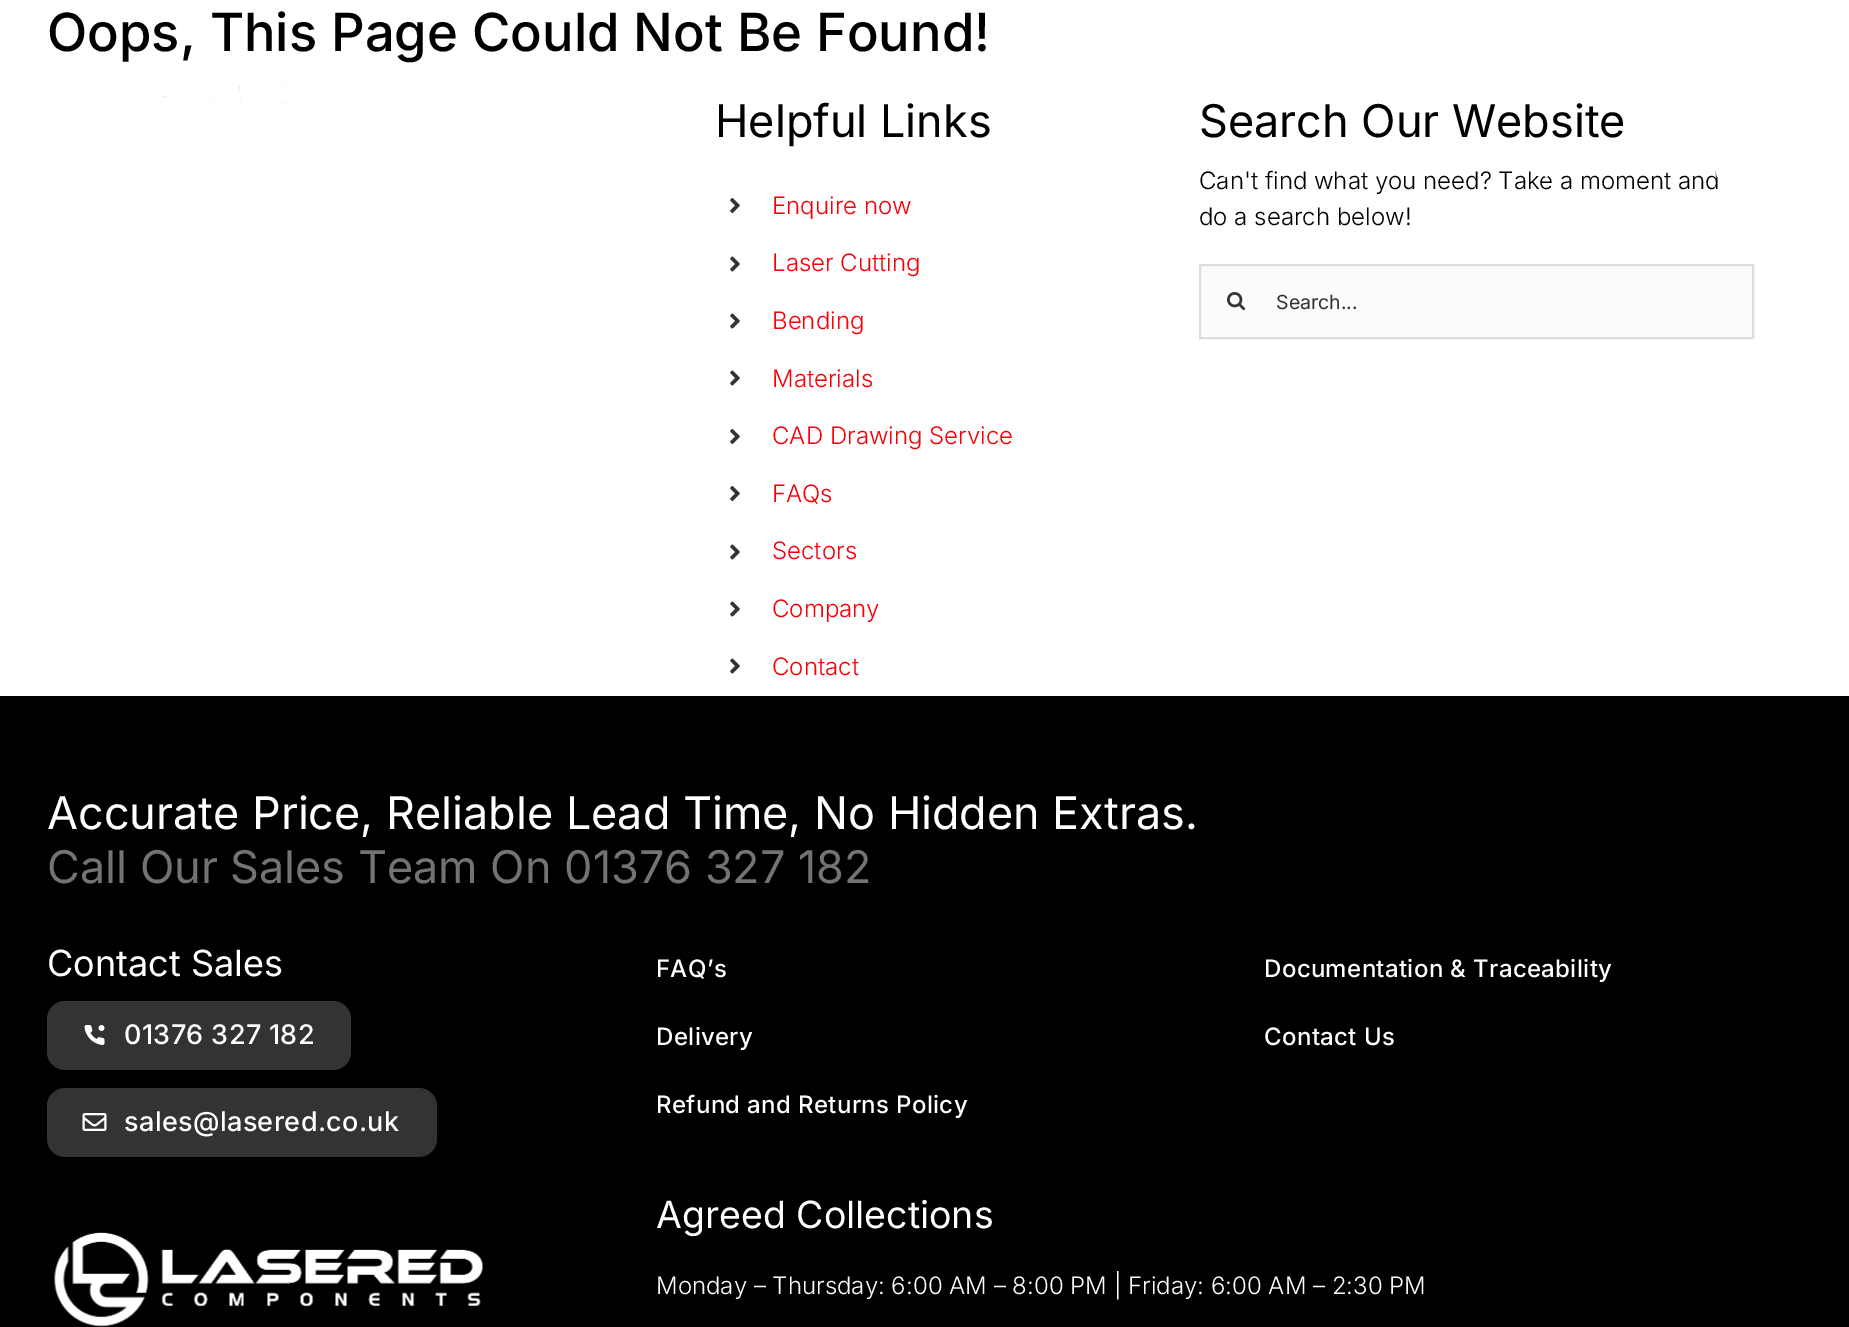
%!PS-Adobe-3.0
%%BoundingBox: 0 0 1849 1327
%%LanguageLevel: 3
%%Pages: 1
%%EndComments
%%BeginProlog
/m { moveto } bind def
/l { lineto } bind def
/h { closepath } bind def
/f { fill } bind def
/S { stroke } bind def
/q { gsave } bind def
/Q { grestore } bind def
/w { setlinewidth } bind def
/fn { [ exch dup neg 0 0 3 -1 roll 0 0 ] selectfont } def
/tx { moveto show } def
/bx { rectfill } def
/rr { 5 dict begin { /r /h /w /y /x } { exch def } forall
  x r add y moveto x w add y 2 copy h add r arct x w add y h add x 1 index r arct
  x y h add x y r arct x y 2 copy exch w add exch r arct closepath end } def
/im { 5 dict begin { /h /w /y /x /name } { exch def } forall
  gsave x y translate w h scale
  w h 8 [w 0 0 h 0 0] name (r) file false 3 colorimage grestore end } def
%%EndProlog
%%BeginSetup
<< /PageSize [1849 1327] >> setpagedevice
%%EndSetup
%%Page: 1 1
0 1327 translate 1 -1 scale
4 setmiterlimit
1 setgray
0 0 1849 1327 bx
/Inter-Medium 52.5 fn
0 setgray
(Oops, This Page Could Not Be Found!) 47 51 tx
/Inter-Regular 45 fn
(Helpful Links) 715 137 tx
(image0.raw) 730 198 10 15 im
/Inter-Light 24 fn
0.969 0 0.031 setrgbcolor
(Enquire now) 772 214 tx
(image1.raw) 730 256 10 16 im
(Laser Cutting) 772 271 tx
(image1.raw) 730 313 10 16 im
(Bending) 772 329 tx
(image1.raw) 730 370 10 16 im
(Materials) 772 387 tx
(image0.raw) 730 429 10 15 im
(CAD Drawing Service) 772 444 tx
(image0.raw) 730 486 10 15 im
(FAQs) 772 502 tx
(image1.raw) 730 544 10 16 im
(Sectors) 772 559 tx
(image1.raw) 730 601 10 16 im
(Company) 772 617 tx
(image1.raw) 730 658 10 16 im
(Contact) 772 675 tx
/Inter-Regular 45 fn
0 setgray
(Search Our Website) 1199 137 tx
/Inter-Light 24 fn
(Can't find what you need? Take a moment and) 1199 189 tx
(do a search below!) 1199 225 tx
0.984 setgray
1200 265 m 1753 265 l 1753 338 l 1200 338 l h q f Q
0.867 setgray
2 w
S
(image2.raw) 1227 292 19 19 im
/Inter-Regular 19.5 fn
0.2 setgray
(Search...) 1276 309 tx
(image3.raw) 132 76 156 37 im
(image4.raw) 1222 175 5 3 im
(image5.raw) 1375 175 3 2 im
(image6.raw) 1544 175 4 3 im
(image7.raw) 1716 171 2 7 im
0 setgray
0 696 1849 631 bx
/Inter-Regular 45 fn
1 setgray
(Accurate Price, Reliable Lead Time, No Hidden Extras.) 47 829 tx
0.451 setgray
(Call Our Sales Team On 01376 327 182) 47 883 tx
/Inter-Regular 36 fn
1 setgray
(Contact Sales) 47 976 tx
0.2 setgray
47 1001 304 69 18 rr f
(image8.raw) 84 1025 21 20 im
/Inter-Medium 27 fn
1 setgray
124 1044 m 0.35 0 (01376 327 182) ashow
0.2 setgray
47 1088 390 69 18 rr f
(image9.raw) 82 1113 25 18 im
1 setgray
124 1131 m 0.35 0 (sales@lasered.co.uk) ashow
/Inter-Medium 24 fn
656 977 m 0.35 0 (FAQ’s) ashow
656 1045 m 0.35 0 (Delivery) ashow
656 1113 m 0.35 0 (Refund and Returns Policy) ashow
1264 977 m 0.35 0 (Documentation & Traceability) ashow
1264 1045 m 0.35 0 (Contact Us) ashow
(image10.raw) 54 1232 429 95 im
/Inter-Regular 37.5 fn
(Agreed Collections) 656 1228 tx
/Inter-Light 24 fn
(Monday – Thursday: 6:00 AM – 8:00 PM | Friday: 6:00 AM – 2:30 PM) 656 1294 tx
showpage
%%EOF
